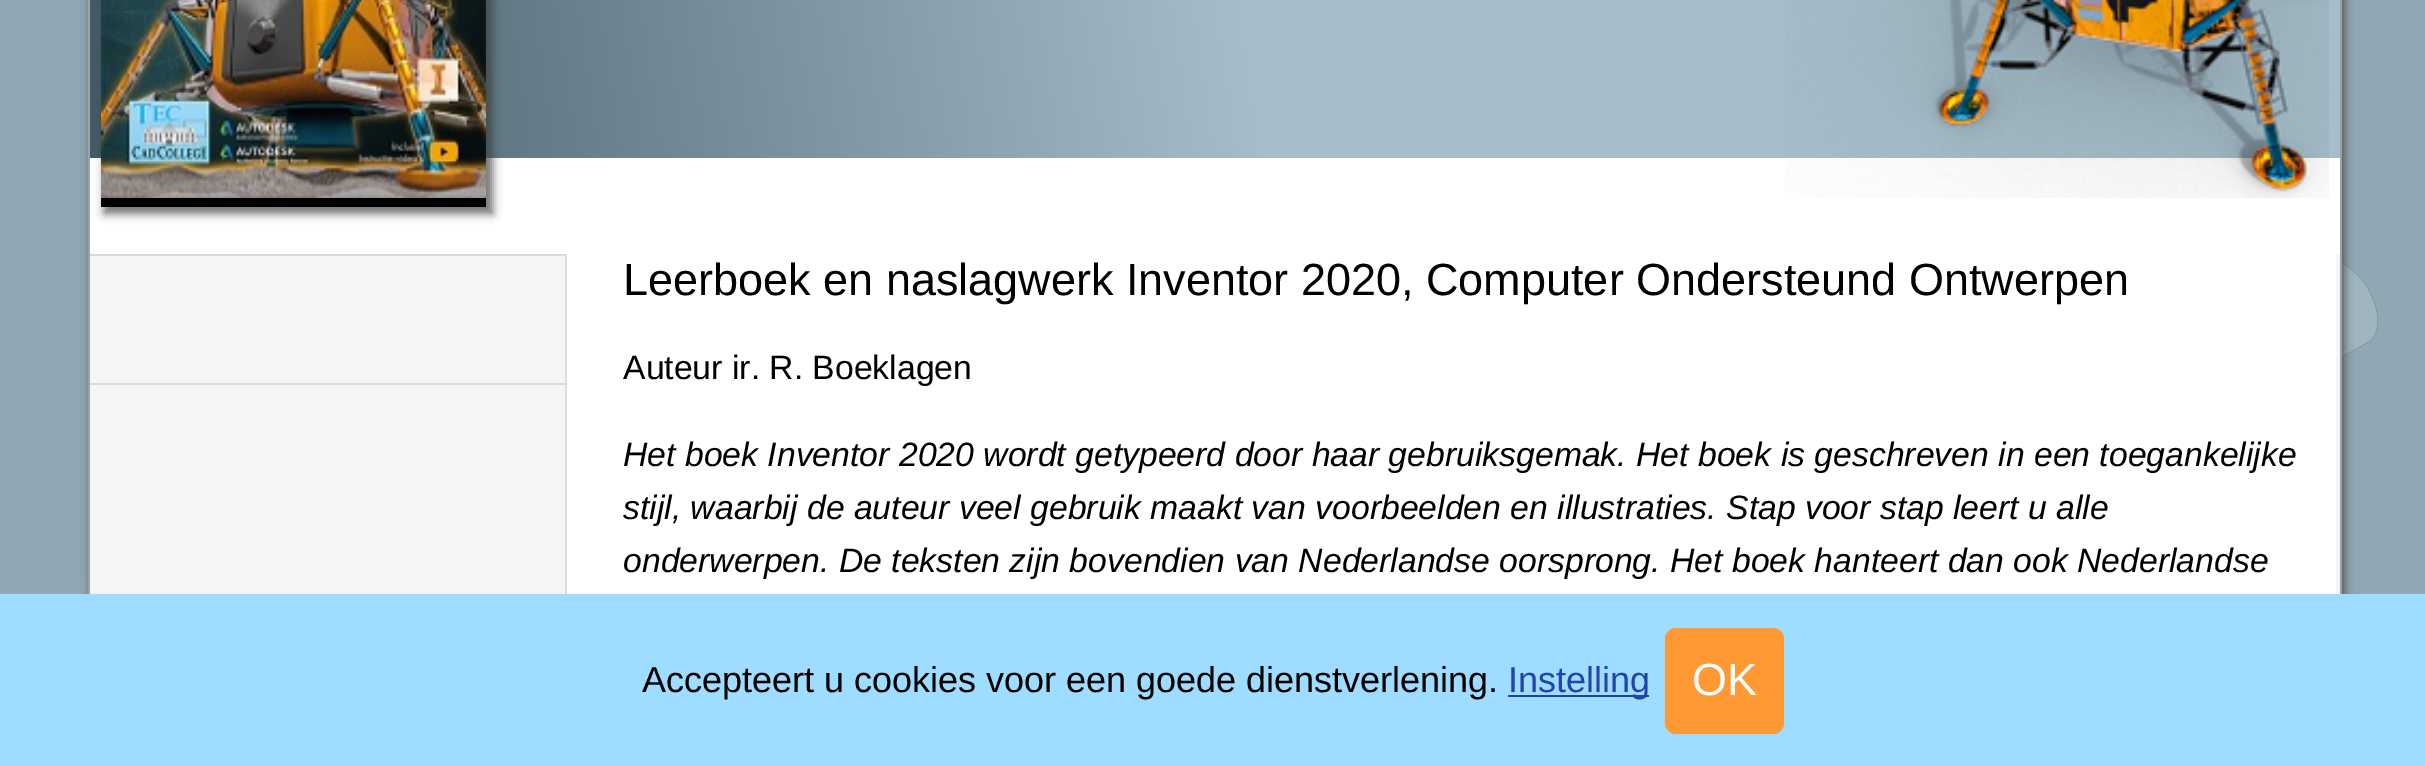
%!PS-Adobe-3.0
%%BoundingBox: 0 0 2425 766
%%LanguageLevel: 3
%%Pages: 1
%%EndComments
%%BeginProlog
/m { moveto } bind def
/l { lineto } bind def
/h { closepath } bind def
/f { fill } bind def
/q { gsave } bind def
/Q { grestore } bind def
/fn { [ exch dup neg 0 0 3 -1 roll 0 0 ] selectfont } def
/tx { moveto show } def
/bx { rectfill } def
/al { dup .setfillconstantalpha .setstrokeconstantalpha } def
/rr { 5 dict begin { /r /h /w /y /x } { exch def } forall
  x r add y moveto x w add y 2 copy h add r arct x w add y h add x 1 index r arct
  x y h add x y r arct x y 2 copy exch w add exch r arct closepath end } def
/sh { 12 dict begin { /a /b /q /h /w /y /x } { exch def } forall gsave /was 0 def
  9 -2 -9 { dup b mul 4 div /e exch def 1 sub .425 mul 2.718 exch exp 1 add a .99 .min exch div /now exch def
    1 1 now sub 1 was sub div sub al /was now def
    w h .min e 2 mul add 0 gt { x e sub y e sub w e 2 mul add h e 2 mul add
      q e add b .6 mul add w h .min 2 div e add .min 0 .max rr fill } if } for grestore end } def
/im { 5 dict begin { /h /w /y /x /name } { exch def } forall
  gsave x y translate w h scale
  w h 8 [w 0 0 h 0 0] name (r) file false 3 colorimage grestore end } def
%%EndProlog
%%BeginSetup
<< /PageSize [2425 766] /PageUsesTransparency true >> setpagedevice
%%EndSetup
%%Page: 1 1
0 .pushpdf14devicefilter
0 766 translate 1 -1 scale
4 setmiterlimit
1 setgray
0 0 2425 766 bx
(image0.raw) 0 0 2425 594 im
0.22 0.231 0.239 setrgbcolor
90 -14 2255 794 0 4.5 0.7 sh
1 setgray
90 158 2250 96 bx
q 90 0 m 2340 0 l 2340 158 l 90 158 l h clip newpath
<< /ShadingType 2 /ColorSpace /DeviceRGB /Coords [1215 -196 91 -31] /Extend [true true] /Function << /FunctionType 3 /Domain [0 1] /Functions [<< /FunctionType 2 /Domain [0 1] /C0 [0.651 0.745 0.792] /C1 [0.384 0.478 0.522] /N 1 >> << /FunctionType 2 /Domain [0 1] /C0 [0.384 0.478 0.522] /C1 [0.263 0.357 0.4] /N 1 >>] /Bounds [0.66] /Encode [0 1 0 1] >> >> shfill Q
0.627 setgray
2340 0 2 594 bx
88 0 2 594 bx
0.22 0.231 0.239 setrgbcolor
104 -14 389 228 0 4.5 0.7 sh
0 setgray
101 195 385 12 bx
(image1.raw) 101 0 385 198 im
(image2.raw) 1785 0 544 198 im
0.961 0.961 0.969 setrgbcolor
90 254 2250 340 bx
0.859 setgray
90 254 475 2 bx
90 383 475 2 bx
1 setgray
567 254 1769 340 bx
0.859 setgray
565 254 2 340 bx
/LiberationSans-Regular 45 fn
0 setgray
(Leerboek en naslagwerk Inventor 2020, Computer Ondersteund Ontwerpen) 623 295 tx
/LiberationSans-Regular 33.75 fn
(Auteur ir. R. Boeklagen) 623 379 tx
/LiberationSans-Italic 33.75 fn
(Het boek Inventor 2020 wordt getypeerd door haar gebruiksgemak. Het boek is geschreven in een toegankelijke) 623 466 tx
(stijl, waarbij de auteur veel gebruik maakt van voorbeelden en illustraties. Stap voor stap leert u alle) 623 519 tx
(onderwerpen. De teksten zijn bovendien van Nederlandse oorsprong. Het boek hanteert dan ook Nederlandse) 623 572 tx
0.62 0.867 1 setrgbcolor
0 594 2425 172 bx
/LiberationSans-Regular 36 fn
0 setgray
(Accepteert u cookies voor een goede dienstverlening.) 642 692 tx
0.133 0.267 0.667 setrgbcolor
1508 695 141 2 bx
(Instelling) 1508 692 tx
1 0.6 0.2 setrgbcolor
1665 628 119 106 11 rr f
/LiberationSans-Regular 45 fn
1 setgray
(OK) 1692 695 tx
.poppdf14devicefilter showpage
%%EOF
